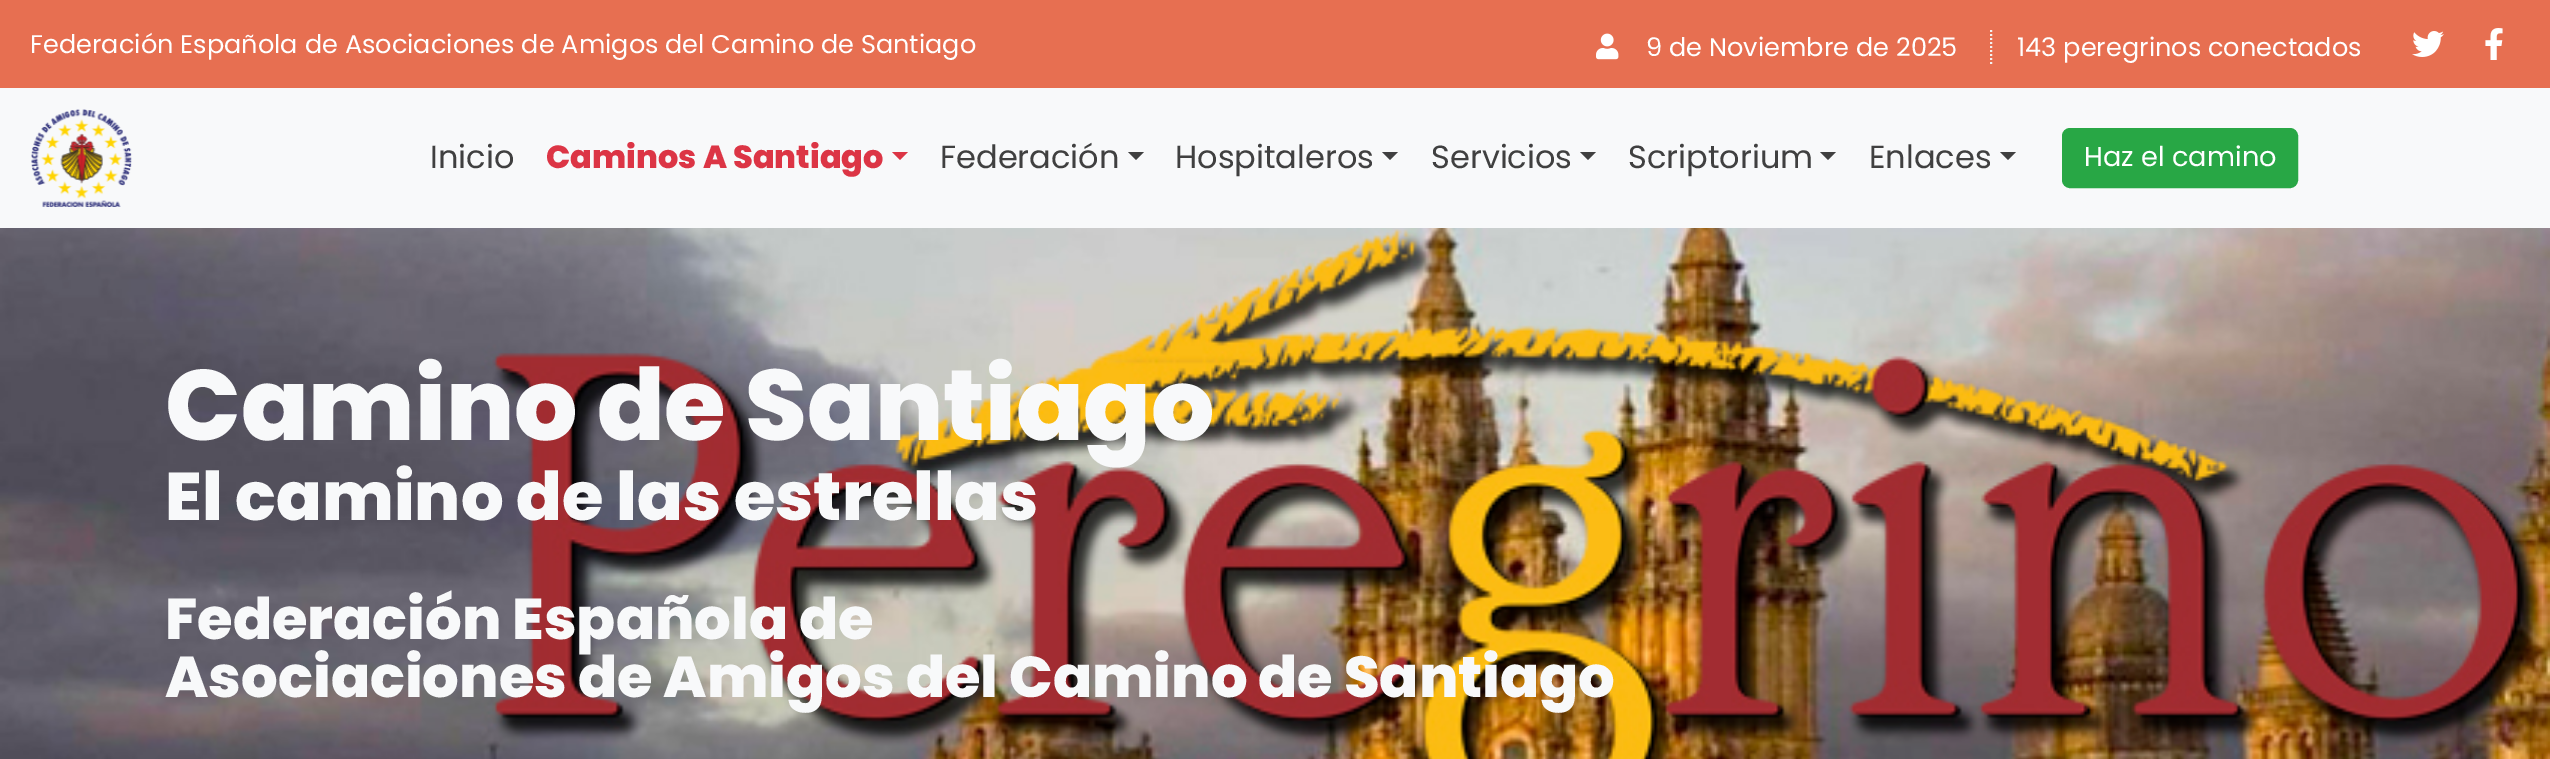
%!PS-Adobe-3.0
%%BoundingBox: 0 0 2550 759
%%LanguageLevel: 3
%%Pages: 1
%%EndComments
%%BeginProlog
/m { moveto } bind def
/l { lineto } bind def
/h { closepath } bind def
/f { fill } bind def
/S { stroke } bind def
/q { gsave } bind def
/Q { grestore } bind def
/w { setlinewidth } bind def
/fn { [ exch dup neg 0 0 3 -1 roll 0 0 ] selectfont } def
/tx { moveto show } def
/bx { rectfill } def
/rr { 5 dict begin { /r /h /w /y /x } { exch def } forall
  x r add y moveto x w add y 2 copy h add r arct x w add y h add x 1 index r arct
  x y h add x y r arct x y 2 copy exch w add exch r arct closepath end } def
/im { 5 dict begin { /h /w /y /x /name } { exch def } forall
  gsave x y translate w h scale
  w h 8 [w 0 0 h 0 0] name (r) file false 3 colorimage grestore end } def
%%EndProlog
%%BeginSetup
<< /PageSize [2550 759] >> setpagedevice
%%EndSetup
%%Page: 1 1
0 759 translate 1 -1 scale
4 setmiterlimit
1 setgray
0 0 2550 759 bx
0.906 0.435 0.318 setrgbcolor
0 0 2550 88 bx
/Poppins-Regular 25.6 fn
1 setgray
(Federación Española de Asociaciones de Amigos del Camino de Santiago) 30 53 tx
(image0.raw) 1596 33 23 27 im
(9 de Noviembre de 2025) 1646 56 tx
(143 peregrinos conectados) 2017 56 tx
0.949 setgray
2 w
[2 2] 0 setdash
1991 30 m 1991 64 l S
(image1.raw) 2412 31 32 26 im
(image2.raw) 2485 28 18 32 im
0.973 0.976 0.98 setrgbcolor
0 88 2550 140 bx
(image3.raw) 31 109 101 98 im
/Poppins-Regular 32 fn
0.251 setgray
(Inicio) 430 168 tx
/Poppins-ExtraBold 32 fn
0.863 0.208 0.271 setrgbcolor
(Caminos A Santiago) 546 168 tx
892 152 m 908 152 l 900 160 l h f
/Poppins-Regular 32 fn
0.251 setgray
(Federación) 940 168 tx
1128 152 m 1144 152 l 1136 160 l h f
(Hospitaleros) 1175 168 tx
1382 152 m 1398 152 l 1390 160 l h f
(Servicios) 1431 168 tx
1580 152 m 1596 152 l 1588 160 l h f
(Scriptorium) 1628 168 tx
1820 152 m 1836 152 l 1828 160 l h f
(Enlaces) 1869 168 tx
2000 152 m 2016 152 l 2008 160 l h f
0.157 0.655 0.271 setrgbcolor
2063 129 234 58 7 rr q f Q
[] 0 setdash
S
/Poppins-Regular 27.25 fn
1 setgray
(Haz el camino) 2084 166 tx
(image4.raw) 0 228 2550 531 im
/Poppins-ExtraBold 99.75 fn
0.973 0.976 0.98 setrgbcolor
(Camino de Santiago) 165 440 tx
/Poppins-ExtraBold 67.25 fn
(El camino de las estrellas) 165 520 tx
/Poppins-ExtraBold 57.6 fn
(Federación Española de) 165 639 tx
(Asociaciones de Amigos del Camino de Santiago) 165 697 tx
showpage
%%EOF
